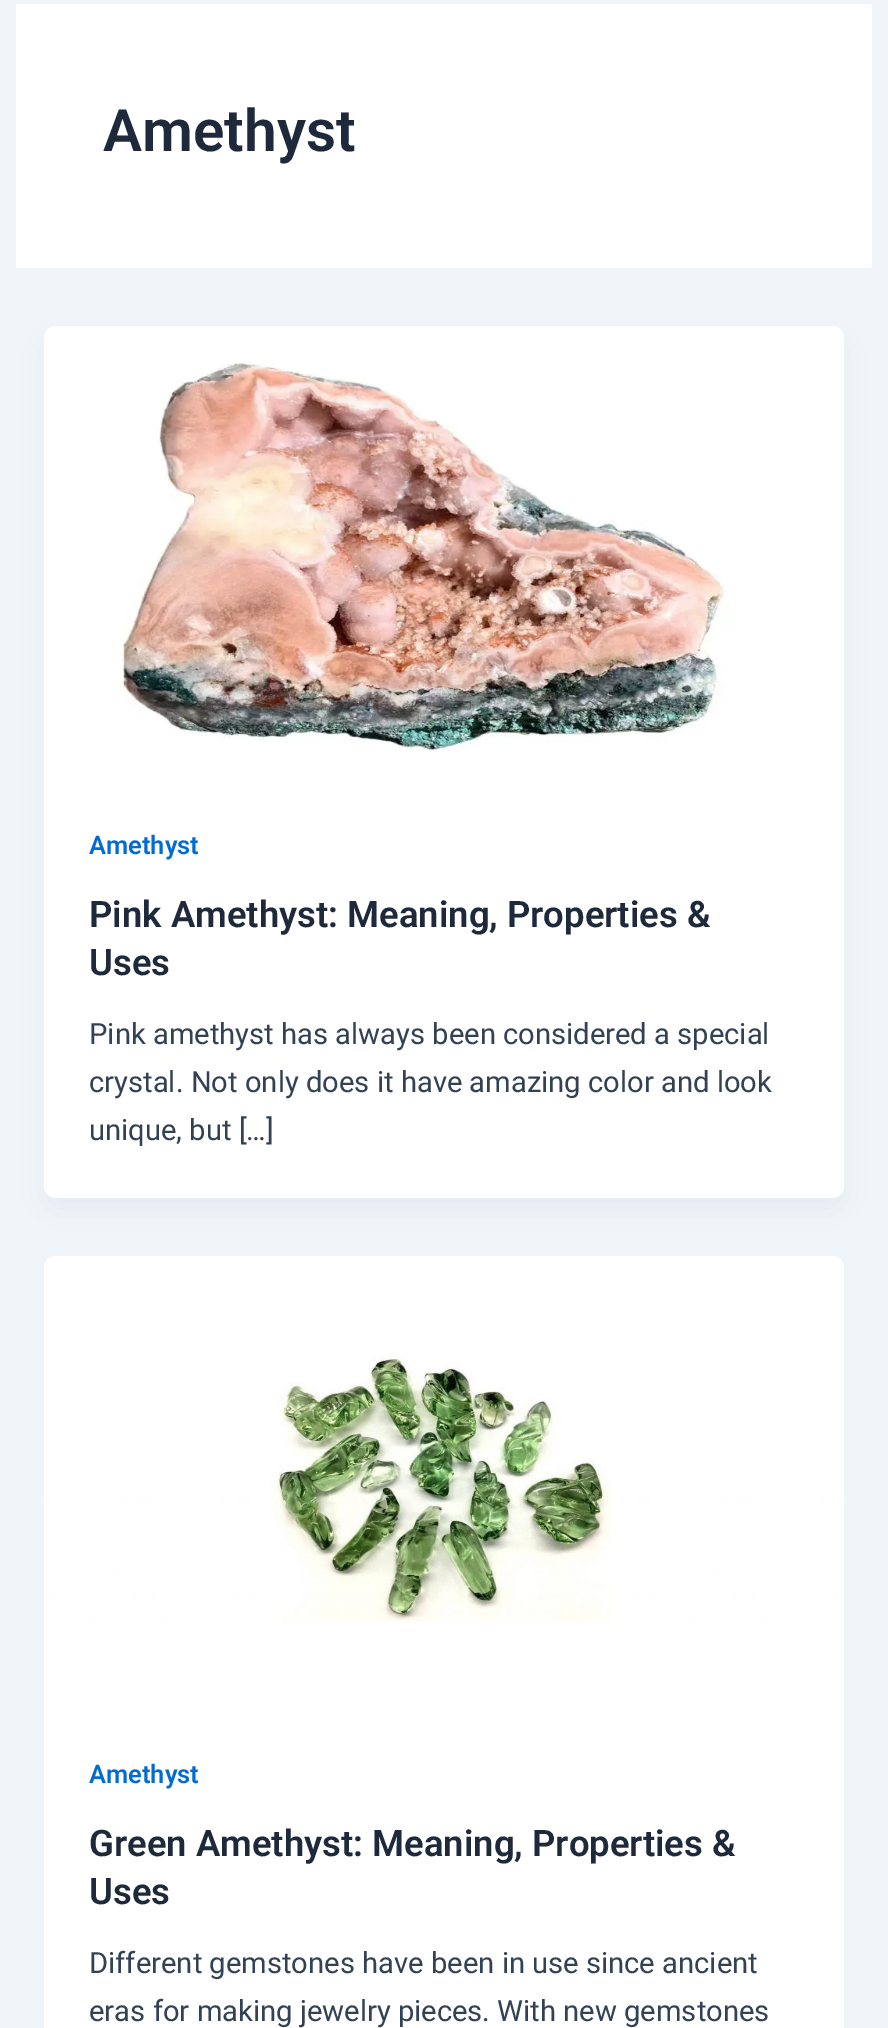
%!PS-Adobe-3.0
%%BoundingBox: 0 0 888 2028
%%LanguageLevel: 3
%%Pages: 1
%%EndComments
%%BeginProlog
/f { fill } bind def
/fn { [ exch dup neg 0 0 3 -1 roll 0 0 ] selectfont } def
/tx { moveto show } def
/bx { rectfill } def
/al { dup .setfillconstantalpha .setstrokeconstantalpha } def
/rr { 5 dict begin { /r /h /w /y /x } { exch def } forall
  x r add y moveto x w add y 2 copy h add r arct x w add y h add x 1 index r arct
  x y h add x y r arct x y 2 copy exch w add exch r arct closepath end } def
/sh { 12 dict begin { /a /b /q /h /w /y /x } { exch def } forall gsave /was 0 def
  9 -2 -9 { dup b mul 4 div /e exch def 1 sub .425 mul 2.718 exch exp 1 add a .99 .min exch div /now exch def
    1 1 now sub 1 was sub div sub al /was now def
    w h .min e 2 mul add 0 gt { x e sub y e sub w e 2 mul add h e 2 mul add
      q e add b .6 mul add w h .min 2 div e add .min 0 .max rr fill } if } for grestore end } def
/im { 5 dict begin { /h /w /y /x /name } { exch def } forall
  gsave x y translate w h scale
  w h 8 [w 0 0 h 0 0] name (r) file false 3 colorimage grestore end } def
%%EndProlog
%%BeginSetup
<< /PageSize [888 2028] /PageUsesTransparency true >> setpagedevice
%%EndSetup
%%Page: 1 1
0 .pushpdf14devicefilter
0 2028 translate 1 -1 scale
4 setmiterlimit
0.941 0.961 0.98 setrgbcolor
0 0 888 2028 bx
1 setgray
16 4 856 264 bx
/Roboto-SemiBold 58.5 fn
0.118 0.161 0.231 setrgbcolor
(Amethyst) 103 151 tx
0.063 0.094 0.157 setrgbcolor
48 342 792 864 8 15 0.05 sh
1 setgray
44 326 800 872 12 rr f
(image0.raw) 45 329 798 422 im
/Roboto-SemiBold 25.5 fn
0.016 0.42 0.824 setrgbcolor
(Amethyst) 89 854 tx
/Roboto-SemiBold 36.5 fn
0.118 0.161 0.231 setrgbcolor
(Pink Amethyst: Meaning, Properties &) 89 927 tx
(Uses) 89 975 tx
/Roboto-Regular 29.2 fn
0.2 0.255 0.333 setrgbcolor
(Pink amethyst has always been considered a special) 89 1044 tx
(crystal. Not only does it have amazing color and look) 89 1092 tx
(unique, but […]) 89 1140 tx
1 setgray
44 1256 800 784 12 rr f
(image1.raw) 45 1259 798 365 im
/Roboto-SemiBold 25.5 fn
0.016 0.42 0.824 setrgbcolor
(Amethyst) 89 1783 tx
/Roboto-SemiBold 36.5 fn
0.118 0.161 0.231 setrgbcolor
(Green Amethyst: Meaning, Properties &) 89 1856 tx
(Uses) 89 1904 tx
/Roboto-Regular 29.2 fn
0.2 0.255 0.333 setrgbcolor
(Different gemstones have been in use since ancient) 89 1973 tx
(eras for making jewelry pieces. With new gemstones) 89 2021 tx
.poppdf14devicefilter showpage
%%EOF
